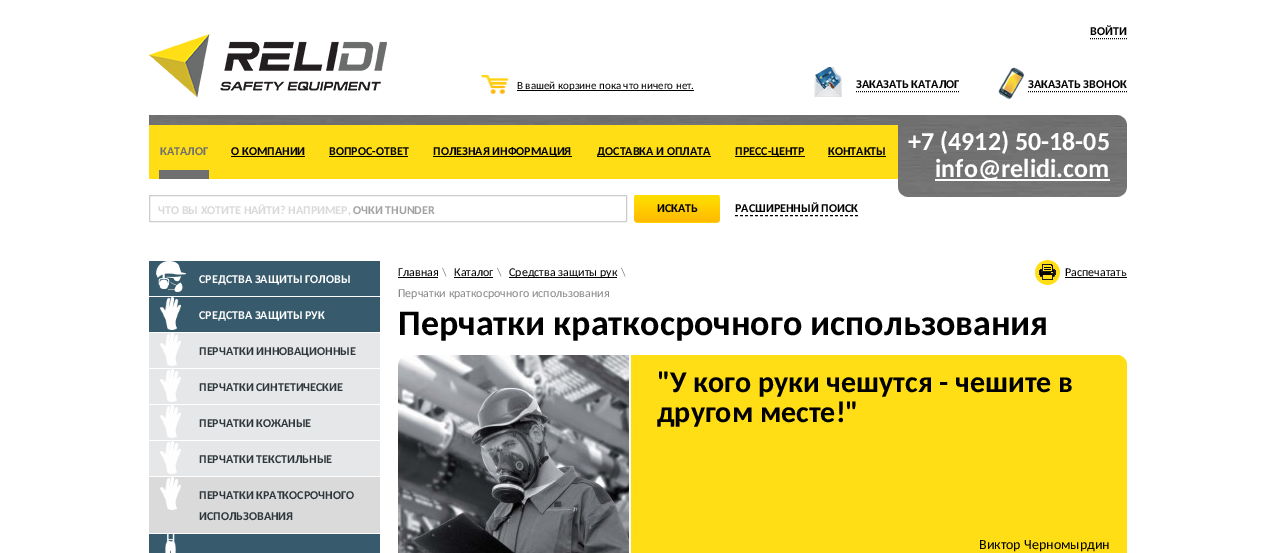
%!PS-Adobe-3.0
%%BoundingBox: 0 0 1275 553
%%LanguageLevel: 3
%%Pages: 1
%%EndComments
%%BeginProlog
/m { moveto } bind def
/l { lineto } bind def
/c { curveto } bind def
/h { closepath } bind def
/f { fill } bind def
/S { stroke } bind def
/fn { [ exch dup neg 0 0 3 -1 roll 0 0 ] selectfont } def
/tx { moveto show } def
/bx { rectfill } def
/rr { 5 dict begin { /r /h /w /y /x } { exch def } forall
  x r add y moveto x w add y 2 copy h add r arct x w add y h add x 1 index r arct
  x y h add x y r arct x y 2 copy exch w add exch r arct closepath end } def
/im { 5 dict begin { /h /w /y /x /name } { exch def } forall
  gsave x y translate w h scale
  w h 8 [w 0 0 h 0 0] name (r) file false 3 colorimage grestore end } def
%%EndProlog
%%BeginSetup
<< /PageSize [1275 553] >> setpagedevice
%%EndSetup
%%Page: 1 1
0 553 translate 1 -1 scale
4 setmiterlimit
1 setgray
0 0 1275 553 bx
/Carlito-Bold 12 fn
0 setgray
(ВОЙТИ) 1090 35 tx
[1 1] 0 setdash
1090 38.5 m 1127 38.5 l S
(image0.raw) 149 34 238 63 im
(image1.raw) 481 75 28 19 im
517 90 177 1 bx
/Carlito-Regular 11 fn
(В вашей корзине пока что ничего нет.) 517 89 tx
(image2.raw) 814 67 28 30 im
/Carlito-Bold 12 fn
(ЗАКАЗАТЬ КАТАЛОГ) 856 88 tx
856 91.5 m 960 91.5 l S
(image3.raw) 998 67 27 32 im
(ЗАКАЗАТЬ ЗВОНОК) 1028 88 tx
1028 91.5 m 1127 91.5 l S
(image4.raw) 149 115 978 82 im
1 0.871 0.086 setrgbcolor
149 125 749 54 bx
0.435 setgray
159 170 50 9 bx
(КАТАЛОГ) 160 155 tx
0 setgray
(О КОМПАНИИ) 231 155 tx
231 156 74 1 bx
(ВОПРОС-ОТВЕТ) 329 155 tx
329 156 79 1 bx
433 156 139 1 bx
(ПОЛЕЗНАЯ ИНФОРМАЦИЯ) 433 155 tx
597 156 114 1 bx
(ДОСТАВКА И ОПЛАТА) 597 155 tx
735 156 70 1 bx
(ПРЕСС-ЦЕНТР) 735 155 tx
(КОНТАКТЫ) 828 155 tx
828 156 58 1 bx
/Carlito-Bold 26 fn
1 setgray
(+7 \(4912\) 50-18-05) 908 150 tx
935 179 175 2 bx
(info@relidi.com) 935 177 tx
0.8 setgray
[] 0 setdash
149.5 195.5 477 26 0.5 rr S
/Carlito-Bold 12 fn
0.851 setgray
(ЧТО ВЫ ХОТИТЕ НАЙТИ? НАПРИМЕР,) 158 214 tx
0.635 setgray
(ОЧКИ THUNDER) 353 214 tx
(image5.raw) 634 195 86 28 im
0 setgray
(ИСКАТЬ) 657 212 tx
(РАСШИРЕННЫЙ ПОИСК) 735 212 tx
[3 2] 0 setdash
735 215.5 m 858 215.5 l S
0.216 0.353 0.424 setrgbcolor
149 261 231 35 bx
(image6.raw) 156 261 30 31 im
1 setgray
(СРЕДСТВА ЗАЩИТЫ ГОЛОВЫ) 199 283 tx
0.216 0.353 0.424 setrgbcolor
149 297 231 35 bx
(image7.raw) 160 297 21 33 im
1 setgray
(СРЕДСТВА ЗАЩИТЫ РУК) 199 319 tx
0.902 0.906 0.91 setrgbcolor
149 333 231 35 bx
(image8.raw) 160 333 21 33 im
0.18 0.216 0.235 setrgbcolor
(ПЕРЧАТКИ ИННОВАЦИОННЫЕ) 199 355 tx
0.902 0.906 0.91 setrgbcolor
149 369 231 35 bx
(image9.raw) 160 369 21 33 im
0.18 0.216 0.235 setrgbcolor
(ПЕРЧАТКИ СИНТЕТИЧЕСКИЕ) 199 391 tx
0.902 0.906 0.91 setrgbcolor
149 405 231 35 bx
(image9.raw) 160 405 21 33 im
0.18 0.216 0.235 setrgbcolor
(ПЕРЧАТКИ КОЖАНЫЕ) 199 427 tx
0.902 0.906 0.91 setrgbcolor
149 441 231 35 bx
(image9.raw) 160 441 21 33 im
0.18 0.216 0.235 setrgbcolor
(ПЕРЧАТКИ ТЕКCТИЛЬНЫЕ) 199 463 tx
0.855 setgray
149 477 231 56 bx
(image10.raw) 160 477 21 33 im
0.18 0.216 0.235 setrgbcolor
(ПЕРЧАТКИ КРАТКОСРОЧНОГО) 199 499 tx
(ИСПОЛЬЗОВАНИЯ) 199 520 tx
0.216 0.353 0.424 setrgbcolor
149 534 231 19 bx
(image11.raw) 165 534 11 19 im
/Carlito-Regular 12 fn
0 setgray
(Главная) 398 276 tx
398 277 40 1 bx
0.529 setgray
(\\) 442 276 tx
0 setgray
(Каталог) 454 276 tx
454 277 39 1 bx
0.529 setgray
(\\) 497 276 tx
0 setgray
509 277 108 1 bx
(Средства защиты рук) 509 276 tx
0.529 setgray
(\\) 621 276 tx
(Перчатки краткосрочного использования) 398 297 tx
(image12.raw) 1035 260 25 25 im
0 setgray
(Распечатать) 1065 276 tx
1065 277 62 1 bx
/Carlito-Bold 36 fn
(Перчатки краткосрочного использования) 398 335 tx
(image13.raw) 398 355 231 198 im
1 0.871 0.086 setrgbcolor
631 355 m 1117 355 l 1122.5 355 1127 359.5 1127 365 c 1127 553 l 1127 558.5 1122.5 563 1117 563 c 641 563 l 635.5 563 631 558.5 631 553 c h f
/Carlito-Bold 30 fn
0 setgray
("У кого руки чешутся - чешите в) 657 392 tx
(другом месте!") 657 422 tx
/Carlito-Regular 14 fn
(Виктор Черномырдин) 979 549 tx
showpage
%%EOF
